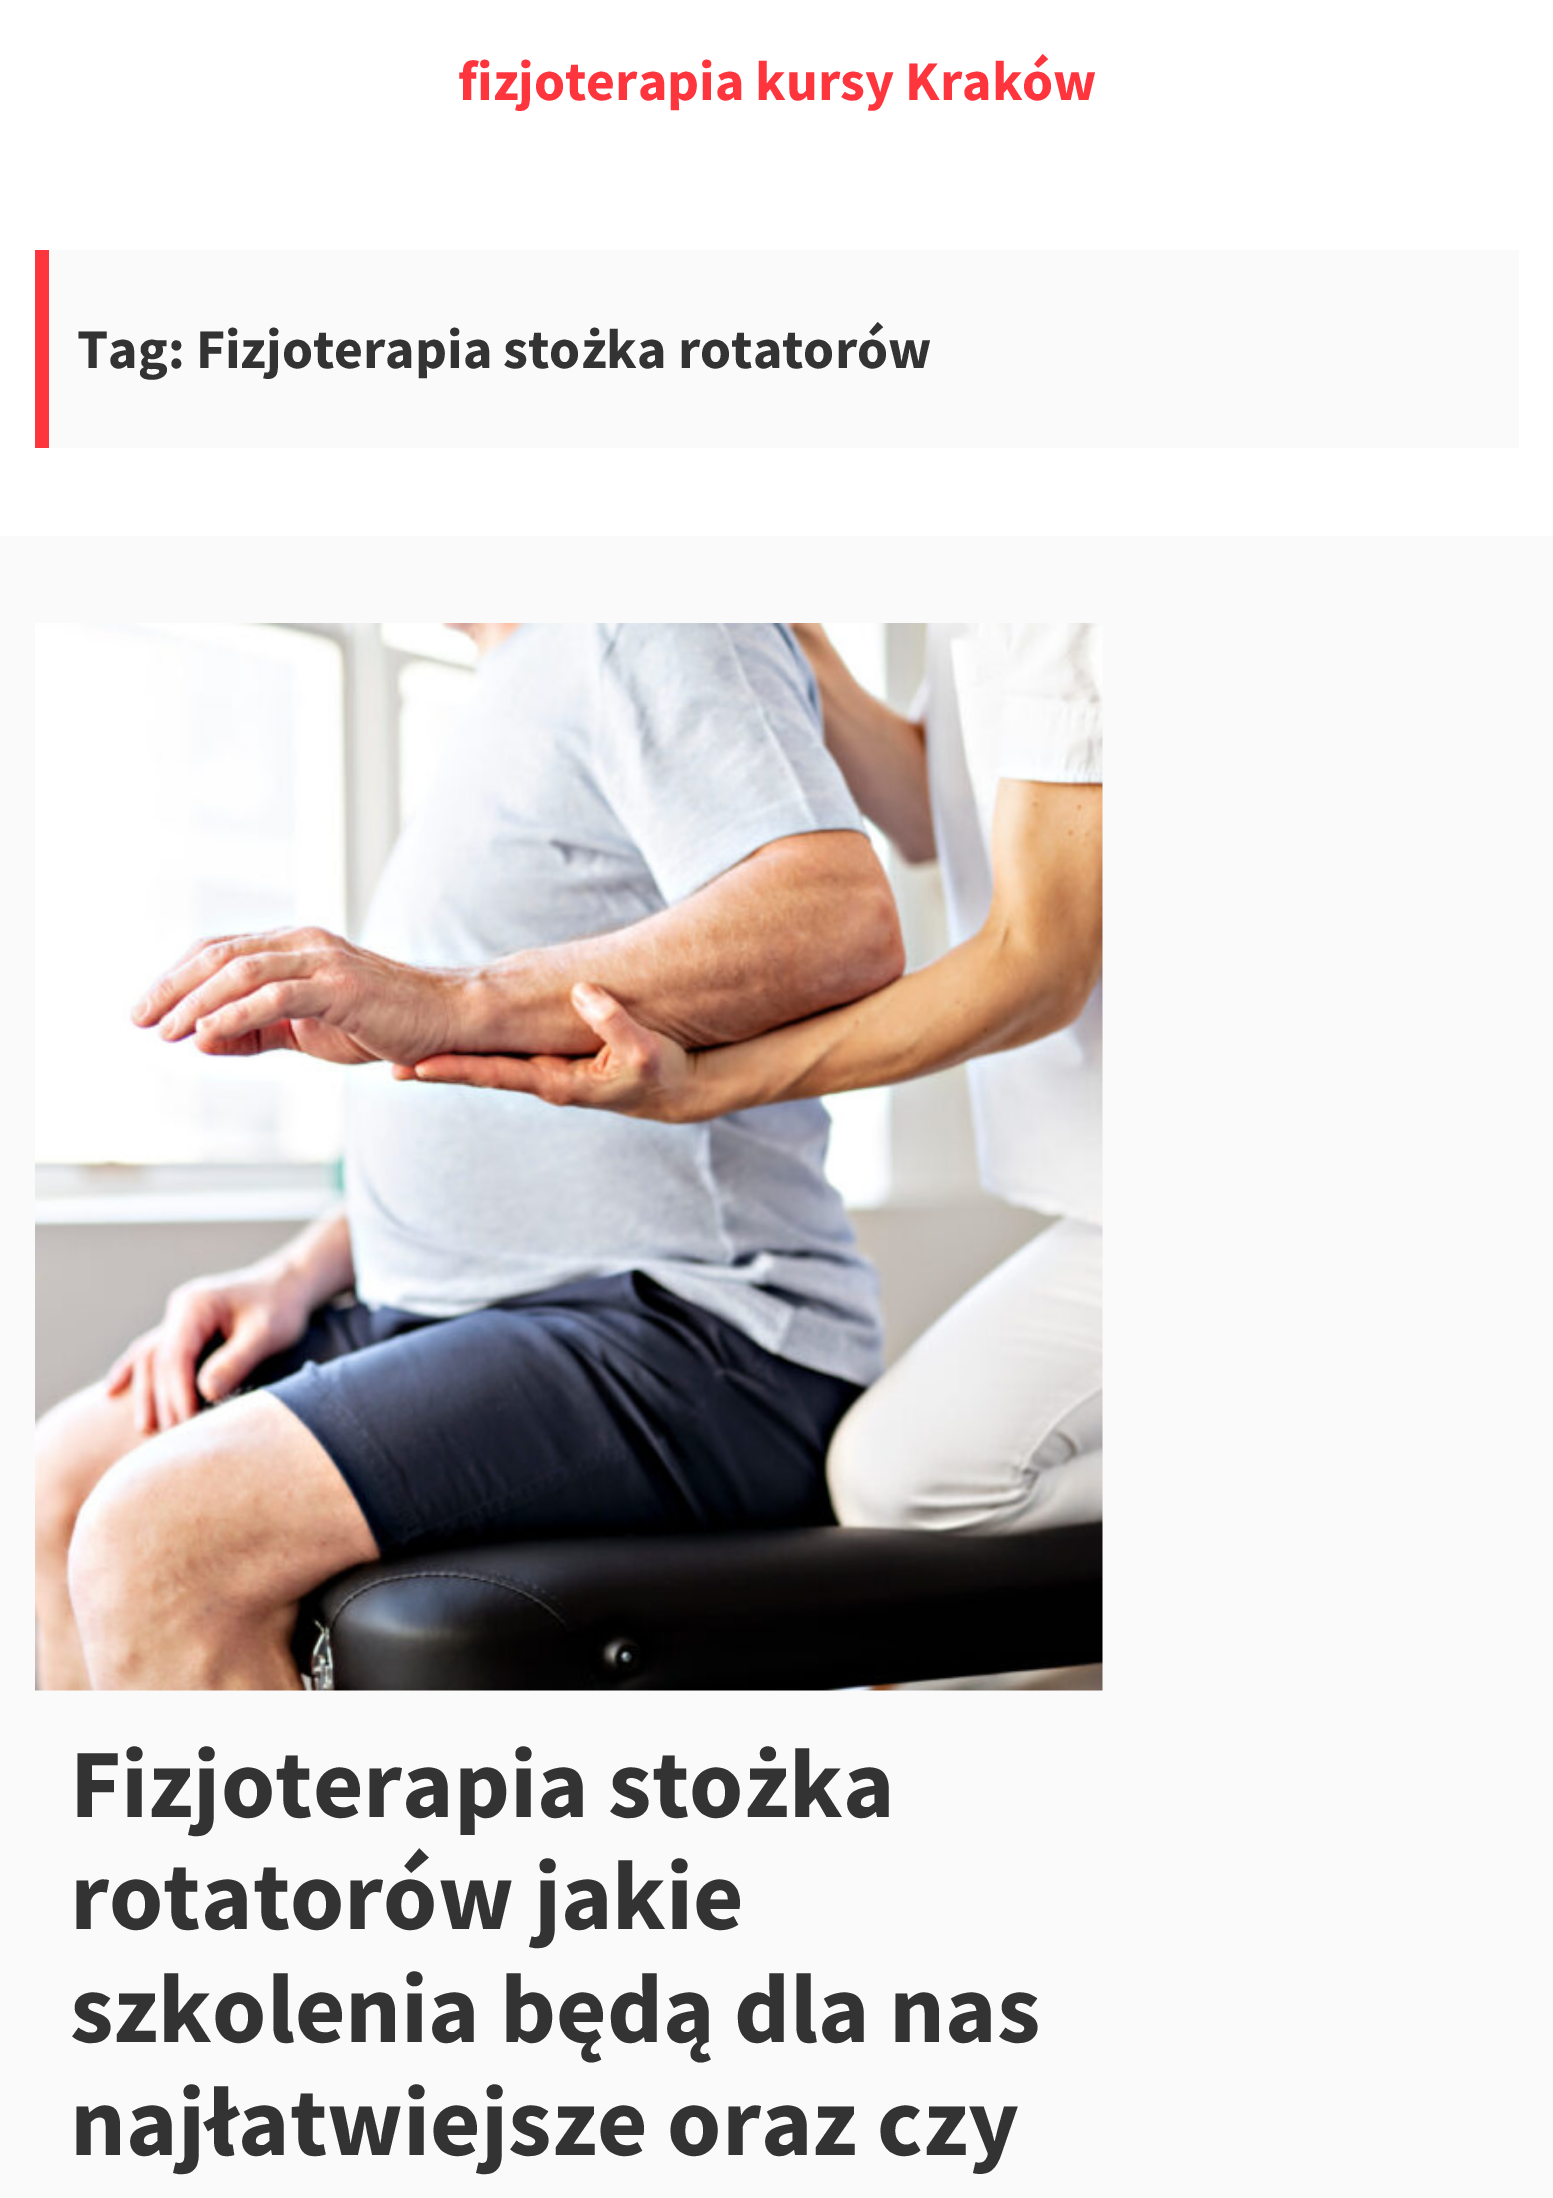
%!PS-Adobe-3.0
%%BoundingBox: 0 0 1553 2198
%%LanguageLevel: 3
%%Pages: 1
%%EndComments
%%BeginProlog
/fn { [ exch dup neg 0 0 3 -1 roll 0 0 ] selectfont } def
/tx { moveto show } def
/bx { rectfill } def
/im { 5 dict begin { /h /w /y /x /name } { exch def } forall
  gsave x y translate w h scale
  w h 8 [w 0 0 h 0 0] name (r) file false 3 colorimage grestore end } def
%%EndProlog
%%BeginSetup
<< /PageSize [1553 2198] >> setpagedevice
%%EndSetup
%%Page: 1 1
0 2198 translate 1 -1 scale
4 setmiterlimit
1 setgray
0 0 1553 2198 bx
/SourceSansPro-Bold 56 fn
1 0.208 0.243 setrgbcolor
(fizjoterapia kursy Kraków) 458 100 tx
0.98 setgray
49 250 1470 198 bx
1 0.208 0.243 setrgbcolor
35 250 14 198 bx
0.2 setgray
(Tag: Fizjoterapia stożka rotatorów) 77 368 tx
0.98 setgray
0 536 1553 1662 bx
(image0.raw) 35 623 1068 1068 im
/SourceSansPro-Bold 98 fn
0.2 setgray
(Fizjoterapia stożka) 70 1817 tx
(rotatorów jakie) 70 1929 tx
(szkolenia będą dla nas) 70 2042 tx
(najłatwiejsze oraz czy) 70 2155 tx
showpage
%%EOF
